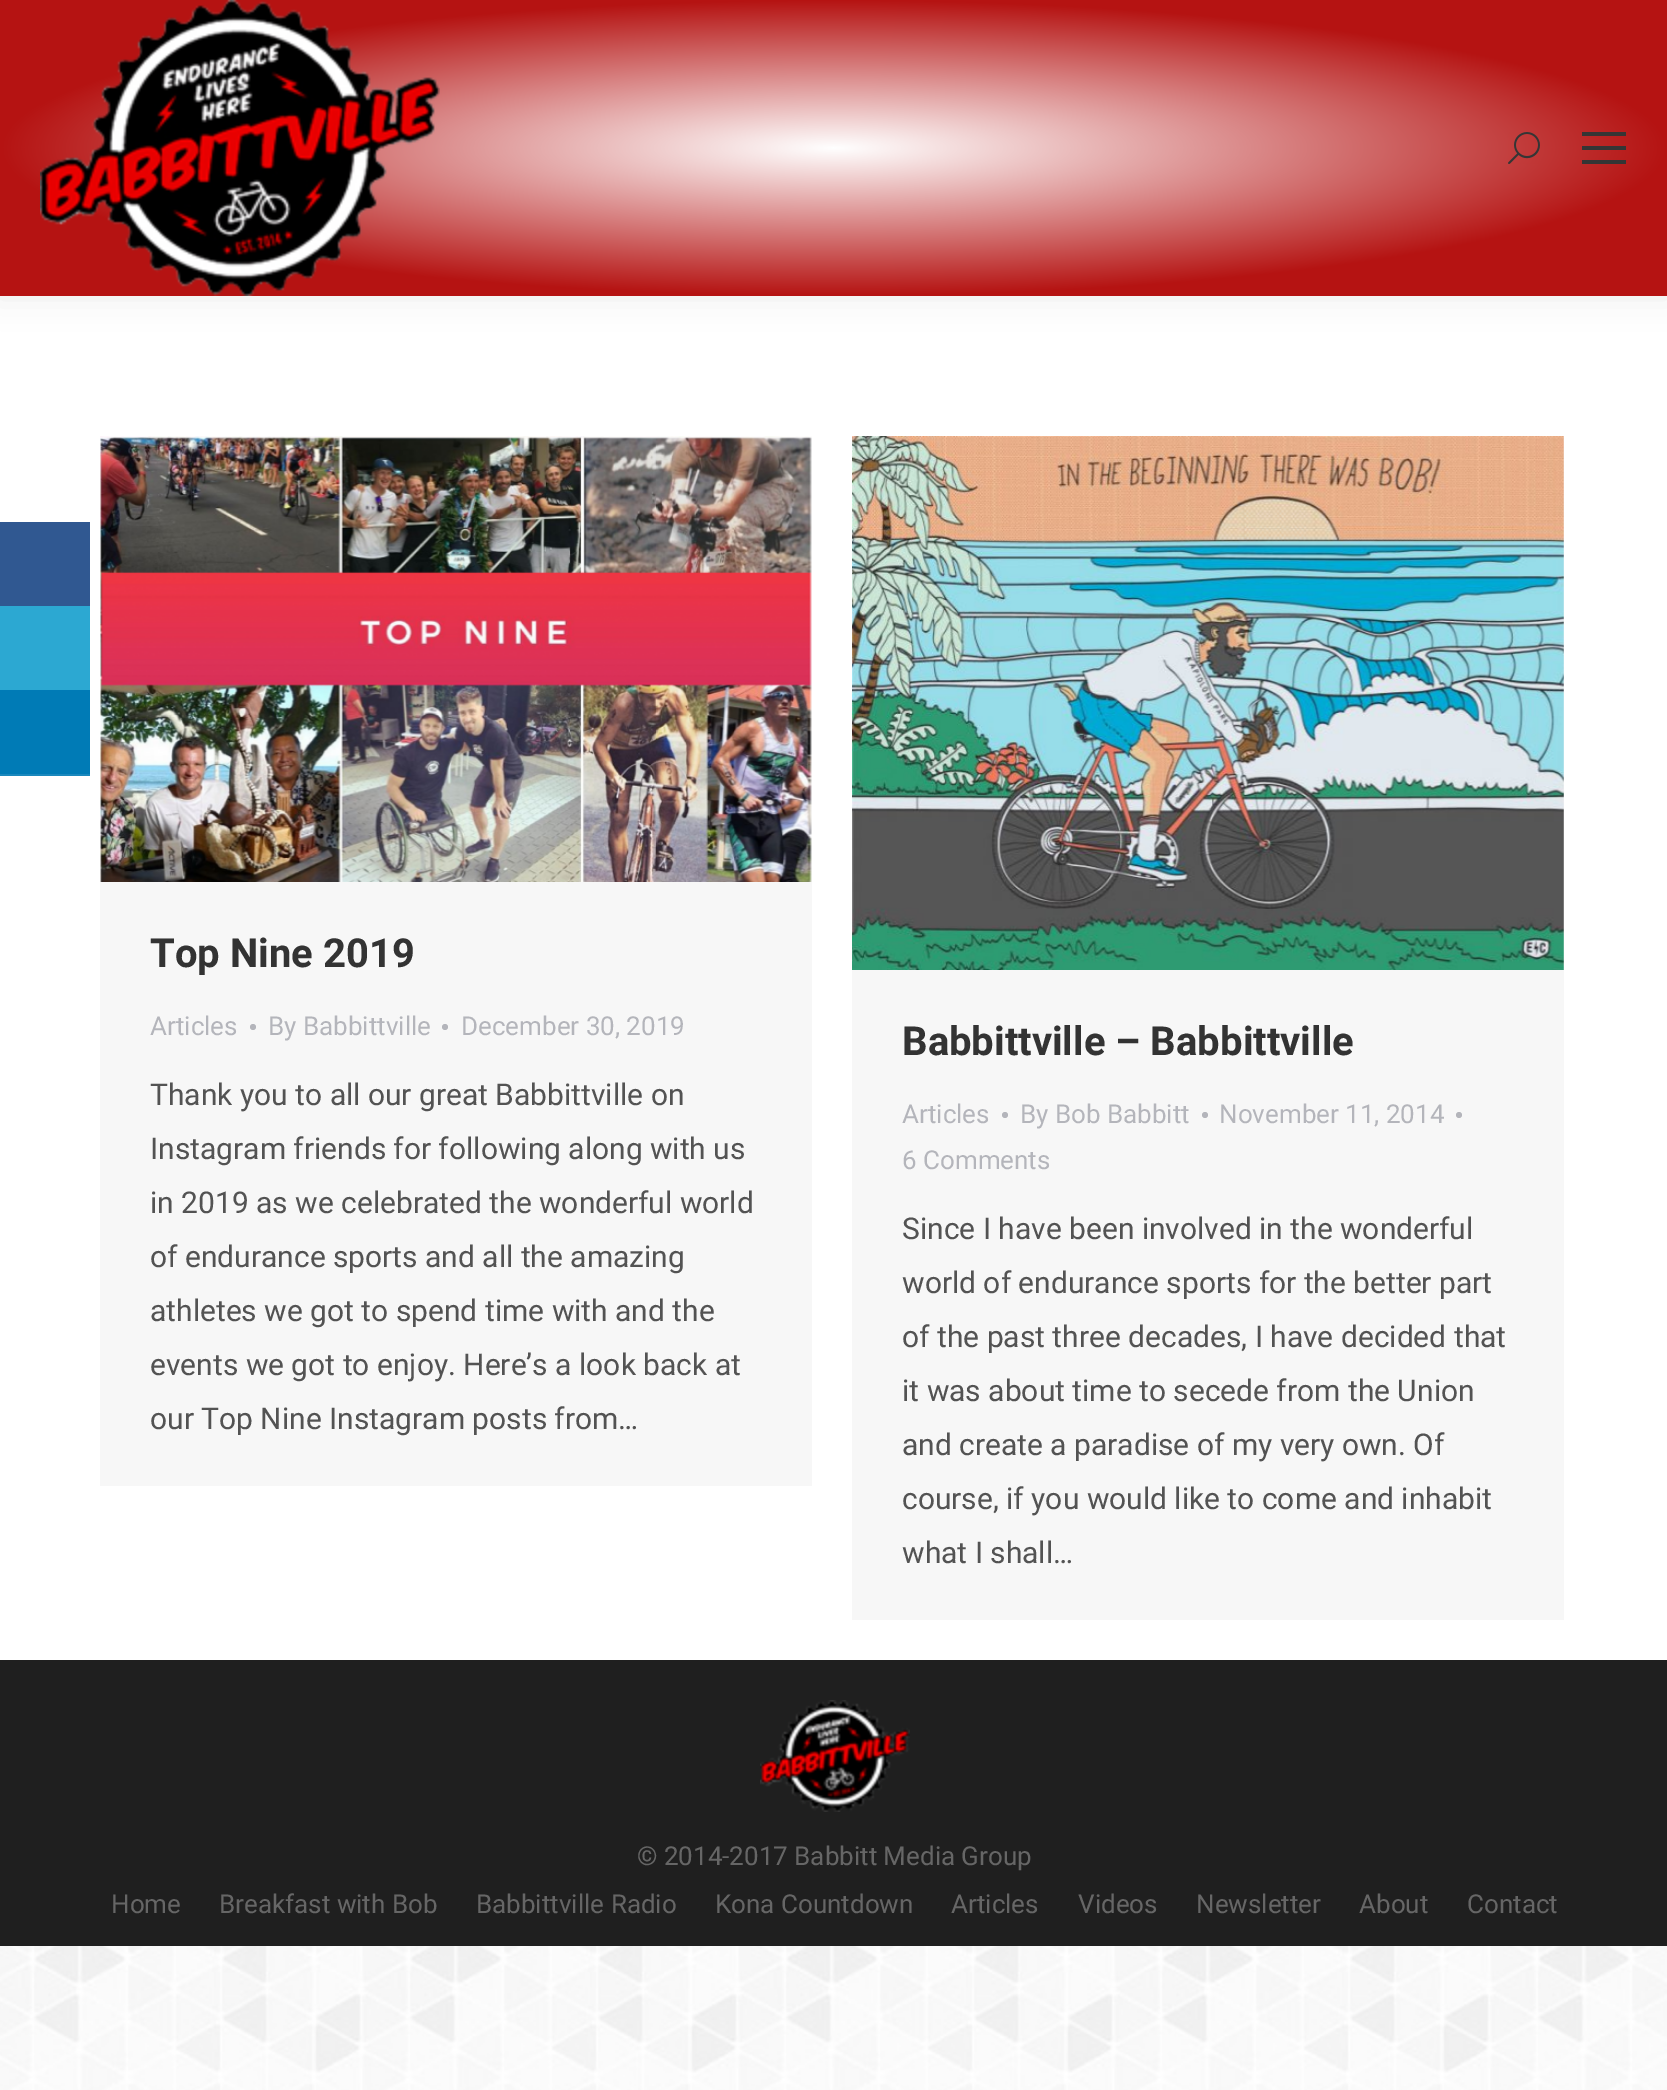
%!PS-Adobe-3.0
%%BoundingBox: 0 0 1667 2090
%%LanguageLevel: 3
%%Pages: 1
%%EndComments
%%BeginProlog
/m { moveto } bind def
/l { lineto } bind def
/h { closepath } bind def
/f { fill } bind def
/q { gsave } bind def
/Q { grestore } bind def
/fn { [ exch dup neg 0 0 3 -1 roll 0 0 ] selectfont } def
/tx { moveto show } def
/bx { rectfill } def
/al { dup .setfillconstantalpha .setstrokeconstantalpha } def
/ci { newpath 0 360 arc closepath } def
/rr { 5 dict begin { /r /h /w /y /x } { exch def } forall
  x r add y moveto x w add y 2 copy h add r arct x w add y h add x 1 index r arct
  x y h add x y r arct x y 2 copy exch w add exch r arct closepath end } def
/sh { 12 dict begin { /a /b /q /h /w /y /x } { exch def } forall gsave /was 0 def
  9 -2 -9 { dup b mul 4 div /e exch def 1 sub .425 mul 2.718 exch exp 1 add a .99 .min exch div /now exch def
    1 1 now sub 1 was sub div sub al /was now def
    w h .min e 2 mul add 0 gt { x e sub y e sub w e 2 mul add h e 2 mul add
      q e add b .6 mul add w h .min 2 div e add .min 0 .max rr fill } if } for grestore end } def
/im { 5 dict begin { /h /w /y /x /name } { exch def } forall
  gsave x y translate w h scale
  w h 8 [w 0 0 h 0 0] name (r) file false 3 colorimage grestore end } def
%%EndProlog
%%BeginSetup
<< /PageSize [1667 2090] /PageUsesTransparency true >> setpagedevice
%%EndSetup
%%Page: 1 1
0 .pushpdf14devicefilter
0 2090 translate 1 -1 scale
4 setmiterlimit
1 setgray
0 0 1667 2090 bx
(image0.raw) 0 1946 1667 144 im
0.188 0.345 0.569 setrgbcolor
0 522 90 84 bx
0.173 0.659 0.824 setrgbcolor
0 606 90 84 bx
0 0.482 0.714 setrgbcolor
0 690 90 84 bx
0.102 0.533 0.741 setrgbcolor
0 774 90 2 bx
0 setgray
-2 -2 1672 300 0 15 0.07 sh
q 0 0 m 1667 0 l 1667 296 l 0 296 l h clip newpath 834 148 translate 834 148 scale
<< /ShadingType 3 /ColorSpace /DeviceRGB /Coords [0 0 0 0 0 1] /Extend [true true] /Function << /FunctionType 2 /Domain [0 1] /C0 [1 1 1] /C1 [0.71 0.075 0.071] /N 1 >> >> shfill Q
(image1.raw) 40 0 400 296 im
(image2.raw) 1508 132 32 32 im
0.208 setgray
1582 132 44 4 bx
1582 146 44 4 bx
1582 160 44 4 bx
0.969 setgray
100 436 712 1050 bx
(image3.raw) 100 436 712 446 im
/Roboto-Bold 40 fn
0.2 setgray
(Top Nine 2019) 150 967 tx
/Roboto-Regular 26 fn
0.706 0.71 0.733 setrgbcolor
(Articles) 150 1035 tx
253 1027 3 ci f
(By Babbittville) 268 1035 tx
445 1027 3 ci f
(December 30, 2019) 461 1035 tx
/Roboto-Regular 30 fn
0.325 setgray
(Thank you to all our great Babbittville on) 150 1105 tx
(Instagram friends for following along with us) 150 1159 tx
(in 2019 as we celebrated the wonderful world) 150 1213 tx
(of endurance sports and all the amazing) 150 1267 tx
(athletes we got to spend time with and the) 150 1321 tx
(events we got to enjoy. Here’s a look back at) 150 1375 tx
(our Top Nine Instagram posts from…) 150 1429 tx
0.969 setgray
852 436 712 1184 bx
(image4.raw) 852 436 712 534 im
/Roboto-Bold 40 fn
0.2 setgray
(Babbittville – Babbittville) 902 1055 tx
/Roboto-Regular 26 fn
0.706 0.71 0.733 setrgbcolor
(Articles) 902 1123 tx
1005 1115 3 ci f
(By Bob Babbitt) 1020 1123 tx
1205 1115 3 ci f
(November 11, 2014) 1219 1123 tx
1459 1115 3 ci f
(6 Comments) 902 1169 tx
/Roboto-Regular 30 fn
0.325 setgray
(Since I have been involved in the wonderful) 902 1239 tx
(world of endurance sports for the better part) 902 1293 tx
(of the past three decades, I have decided that) 902 1347 tx
(it was about time to secede from the Union) 902 1401 tx
(and create a paradise of my very own. Of) 902 1455 tx
(course, if you would like to come and inhabit) 902 1509 tx
(what I shall…) 902 1563 tx
0.122 setgray
0 1660 1667 286 bx
(image5.raw) 760 1700 150 112 im
/Roboto-Regular 26 fn
0.4 setgray
(© 2014-2017 Babbitt Media Group) 637 1865 tx
(Home) 111 1913 tx
(Breakfast with Bob) 219 1913 tx
(Babbittville Radio) 476 1913 tx
(Kona Countdown) 715 1913 tx
(Articles) 951 1913 tx
(Videos) 1078 1913 tx
(Newsletter) 1196 1913 tx
(About) 1359 1913 tx
(Contact) 1467 1913 tx
.poppdf14devicefilter showpage
%%EOF
